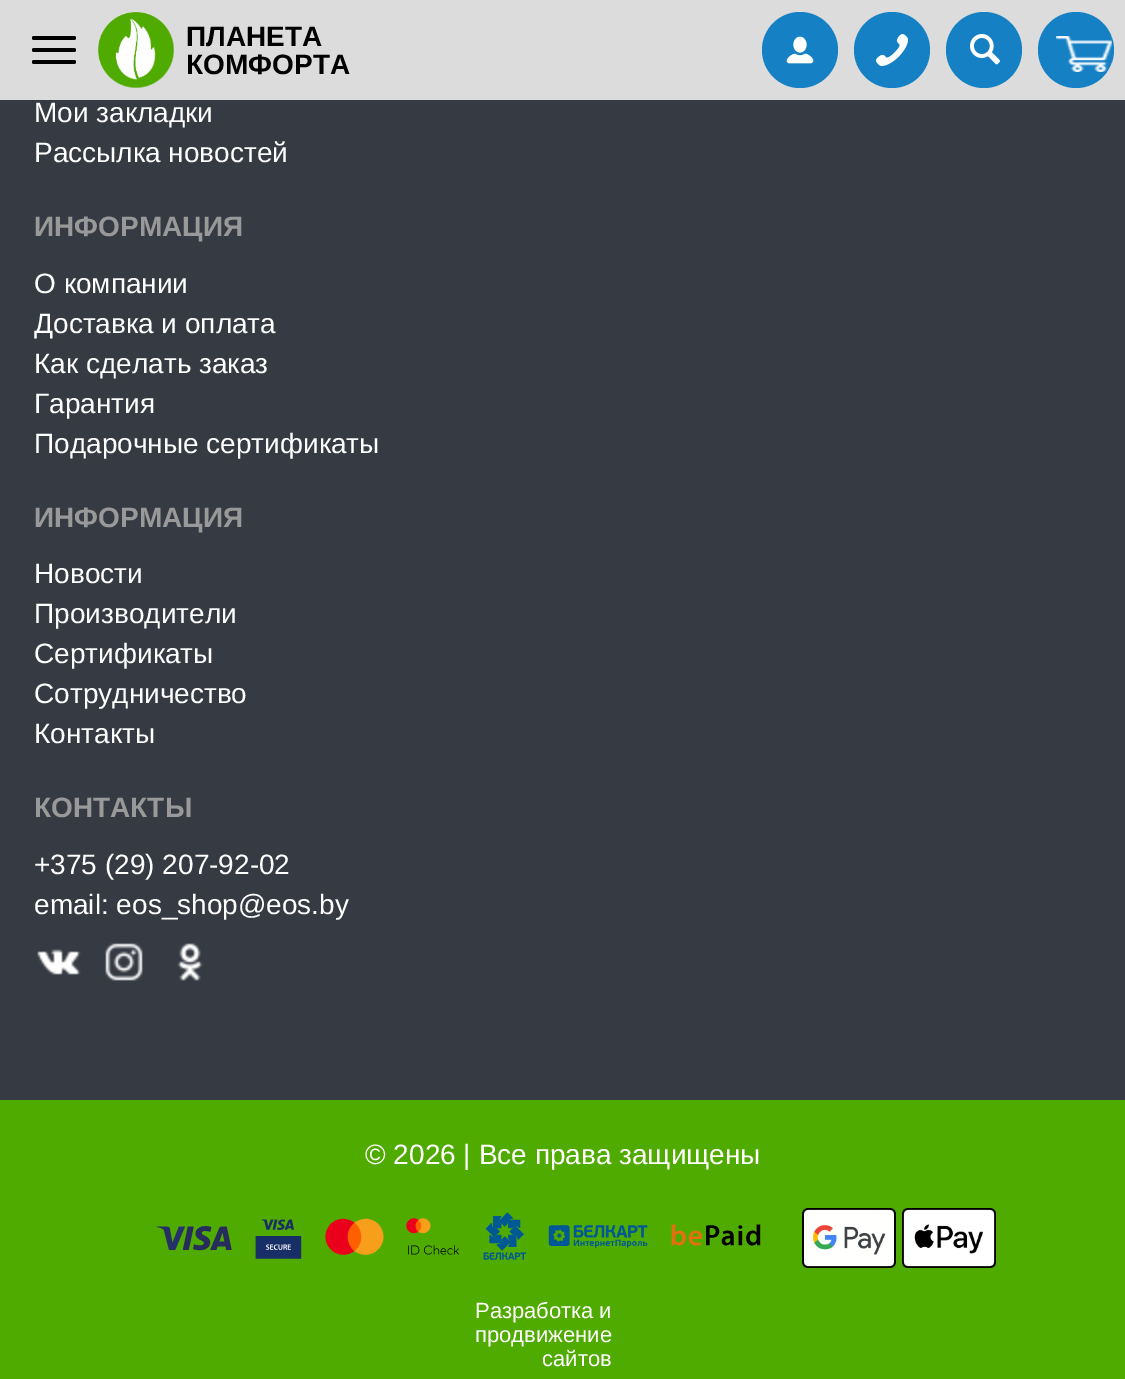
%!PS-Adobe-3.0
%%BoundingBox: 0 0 1125 1379
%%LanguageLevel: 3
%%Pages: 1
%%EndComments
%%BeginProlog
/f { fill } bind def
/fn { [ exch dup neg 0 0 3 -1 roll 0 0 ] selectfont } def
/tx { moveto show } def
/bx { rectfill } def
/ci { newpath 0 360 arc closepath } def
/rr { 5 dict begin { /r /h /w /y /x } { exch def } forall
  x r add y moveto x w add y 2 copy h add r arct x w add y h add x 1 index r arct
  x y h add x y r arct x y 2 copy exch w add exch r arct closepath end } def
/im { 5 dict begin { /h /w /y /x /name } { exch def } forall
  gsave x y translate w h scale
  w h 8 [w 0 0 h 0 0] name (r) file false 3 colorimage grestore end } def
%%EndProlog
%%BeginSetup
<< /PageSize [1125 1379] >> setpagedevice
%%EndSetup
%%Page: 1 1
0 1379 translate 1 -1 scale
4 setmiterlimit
0.212 0.227 0.259 setrgbcolor
0 0 1125 1379 bx
0.863 setgray
0 0 1125 100 bx
0 setgray
32 36 44 4 2 rr f
32 48 44 4 2 rr f
32 60 44 4 2 rr f
(image0.raw) 98 12 76 76 im
/LiberationSans-Bold 28 fn
(ПЛАНЕТА) 186 46 tx
(КОМФОРТА) 186 74 tx
0.082 0.502 0.769 setrgbcolor
800 50 38 ci f
(image1.raw) 786 36 28 28 im
892 50 38 ci f
(image2.raw) 876 34 32 32 im
984 50 38 ci f
(image3.raw) 970 34 30 31 im
1076 50 38 ci f
(image4.raw) 1056 36 56 36 im
/LiberationSans-Regular 28 fn
1 setgray
(Мои закладки) 34 122 tx
(Рассылка новостей) 34 162 tx
/LiberationSans-Bold 28 fn
0.6 setgray
(ИНФОРМАЦИЯ) 34 236 tx
/LiberationSans-Regular 28 fn
1 setgray
(О компании) 34 293 tx
(Доставка и оплата) 34 333 tx
(Как сделать заказ) 34 373 tx
(Гарантия) 34 413 tx
(Подарочные сертификаты) 34 453 tx
/LiberationSans-Bold 28 fn
0.6 setgray
(ИНФОРМАЦИЯ) 34 527 tx
/LiberationSans-Regular 28 fn
1 setgray
(Новости) 34 583 tx
(Производители) 34 623 tx
(Сертификаты) 34 663 tx
(Сотрудничество) 34 703 tx
(Контакты) 34 743 tx
/LiberationSans-Bold 28 fn
0.6 setgray
(КОНТАКТЫ) 34 817 tx
/LiberationSans-Regular 28 fn
1 setgray
(+375 \(29\) 207-92-02) 34 874 tx
(email: eos_shop@eos.by) 34 914 tx
(image5.raw) 37 949 44 26 im
(image6.raw) 105 943 38 38 im
(image7.raw) 177 943 26 38 im
0.314 0.671 0 setrgbcolor
0 1100 1125 279 bx
1 setgray
(© 2026 | Все права защищены) 365 1164 tx
(image8.raw) 156 1212 605 48 im
(image9.raw) 802 1208 94 60 im
(image10.raw) 902 1208 94 60 im
/LiberationSans-Regular 22 fn
(Разработка и) 475 1318 tx
(продвижение) 475 1342 tx
(сайтов) 542 1366 tx
showpage
%%EOF
